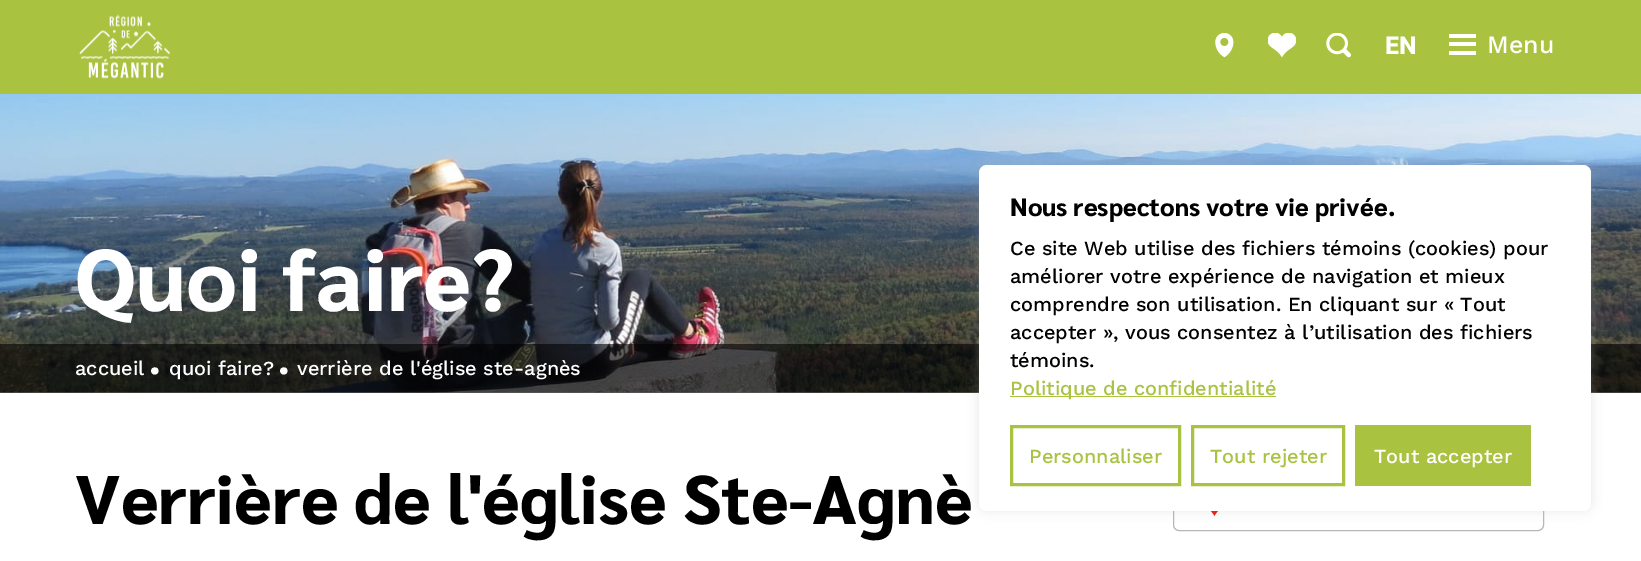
%!PS-Adobe-3.0
%%BoundingBox: 0 0 1641 561
%%LanguageLevel: 3
%%Pages: 1
%%EndComments
%%BeginProlog
/f { fill } bind def
/S { stroke } bind def
/w { setlinewidth } bind def
/fn { [ exch dup neg 0 0 3 -1 roll 0 0 ] selectfont } def
/tx { moveto show } def
/bx { rectfill } def
/al { dup .setfillconstantalpha .setstrokeconstantalpha } def
/rr { 5 dict begin { /r /h /w /y /x } { exch def } forall
  x r add y moveto x w add y 2 copy h add r arct x w add y h add x 1 index r arct
  x y h add x y r arct x y 2 copy exch w add exch r arct closepath end } def
/sh { 12 dict begin { /a /b /q /h /w /y /x } { exch def } forall gsave /was 0 def
  9 -2 -9 { dup b mul 4 div /e exch def 1 sub .425 mul 2.718 exch exp 1 add a .99 .min exch div /now exch def
    1 1 now sub 1 was sub div sub al /was now def
    w h .min e 2 mul add 0 gt { x e sub y e sub w e 2 mul add h e 2 mul add
      q e add b .6 mul add w h .min 2 div e add .min 0 .max rr fill } if } for grestore end } def
/im { 5 dict begin { /h /w /y /x /name } { exch def } forall
  gsave x y translate w h scale
  w h 8 [w 0 0 h 0 0] name (r) file false 3 colorimage grestore end } def
%%EndProlog
%%BeginSetup
<< /PageSize [1641 561] /PageUsesTransparency true >> setpagedevice
%%EndSetup
%%Page: 1 1
0 .pushpdf14devicefilter
0 561 translate 1 -1 scale
4 setmiterlimit
1 setgray
0 0 1641 561 bx
0.663 0.761 0.251 setrgbcolor
0 0 1641 94 bx
(image0.raw) 79 14 91 65 im
(image1.raw) 1215 33 19 25 im
(image2.raw) 1268 33 28 25 im
(image3.raw) 1326 33 25 25 im
/Sarabun-ExtraBold 25 fn
1 setgray
(EN) 1385 54 tx
1449 34 27 4 bx
1449 42 27 4 bx
1449 51 27 4 bx
/WorkSans-Medium 25 fn
(Menu) 1487 53 tx
(image4.raw) 0 94 1641 299 im
/Sarabun-ExtraBold 87.5 fn
(Quoi faire?) 75 311 tx
0.6 al
0 setgray
0 344 1641 49 bx
/WorkSans-Medium 20 fn
1 al
1 setgray
(accueil) 75 375 tx
/WorkSans-Medium 50 fn
(.) 148 374 tx
/WorkSans-Medium 20 fn
(quoi faire?) 169 375 tx
/WorkSans-Medium 50 fn
(.) 277 374 tx
/WorkSans-Medium 20 fn
(verrière de l'église ste-agnès) 297 375 tx
/Sarabun-ExtraBold 68.75 fn
0 setgray
(Verrière de l'église Ste-Agnè) 75 524 tx
0.718 setgray
1173.5 473.5 370 57 5.5 rr S
(image5.raw) 1210 511 9 5 im
0.675 0.671 0.671 setrgbcolor
979 164 612 346 8 6 0.3 sh
1 setgray
979 165 612 346 8 rr f
/Sarabun-ExtraBold 25 fn
0 setgray
(Nous respectons votre vie privée.) 1010 216 tx
/WorkSans-Medium 20 fn
(Ce site Web utilise des fichiers témoins \(cookies\) pour) 1010 255 tx
(améliorer votre expérience de navigation et mieux) 1010 283 tx
(comprendre son utilisation. En cliquant sur « Tout) 1010 311 tx
(accepter », vous consentez à l’utilisation des fichiers) 1010 339 tx
(témoins.) 1010 367 tx
0.663 0.761 0.251 setrgbcolor
1010 396 266 1 bx
(Politique de confidentialité) 1010 395 tx
3 w
1011.5 426.5 168 58 rectstroke
(Personnaliser) 1029 463 tx
1192.5 426.5 151 58 rectstroke
(Tout rejeter) 1210 463 tx
1355 425 176 61 bx
1 setgray
(Tout accepter) 1374 463 tx
.poppdf14devicefilter showpage
%%EOF
